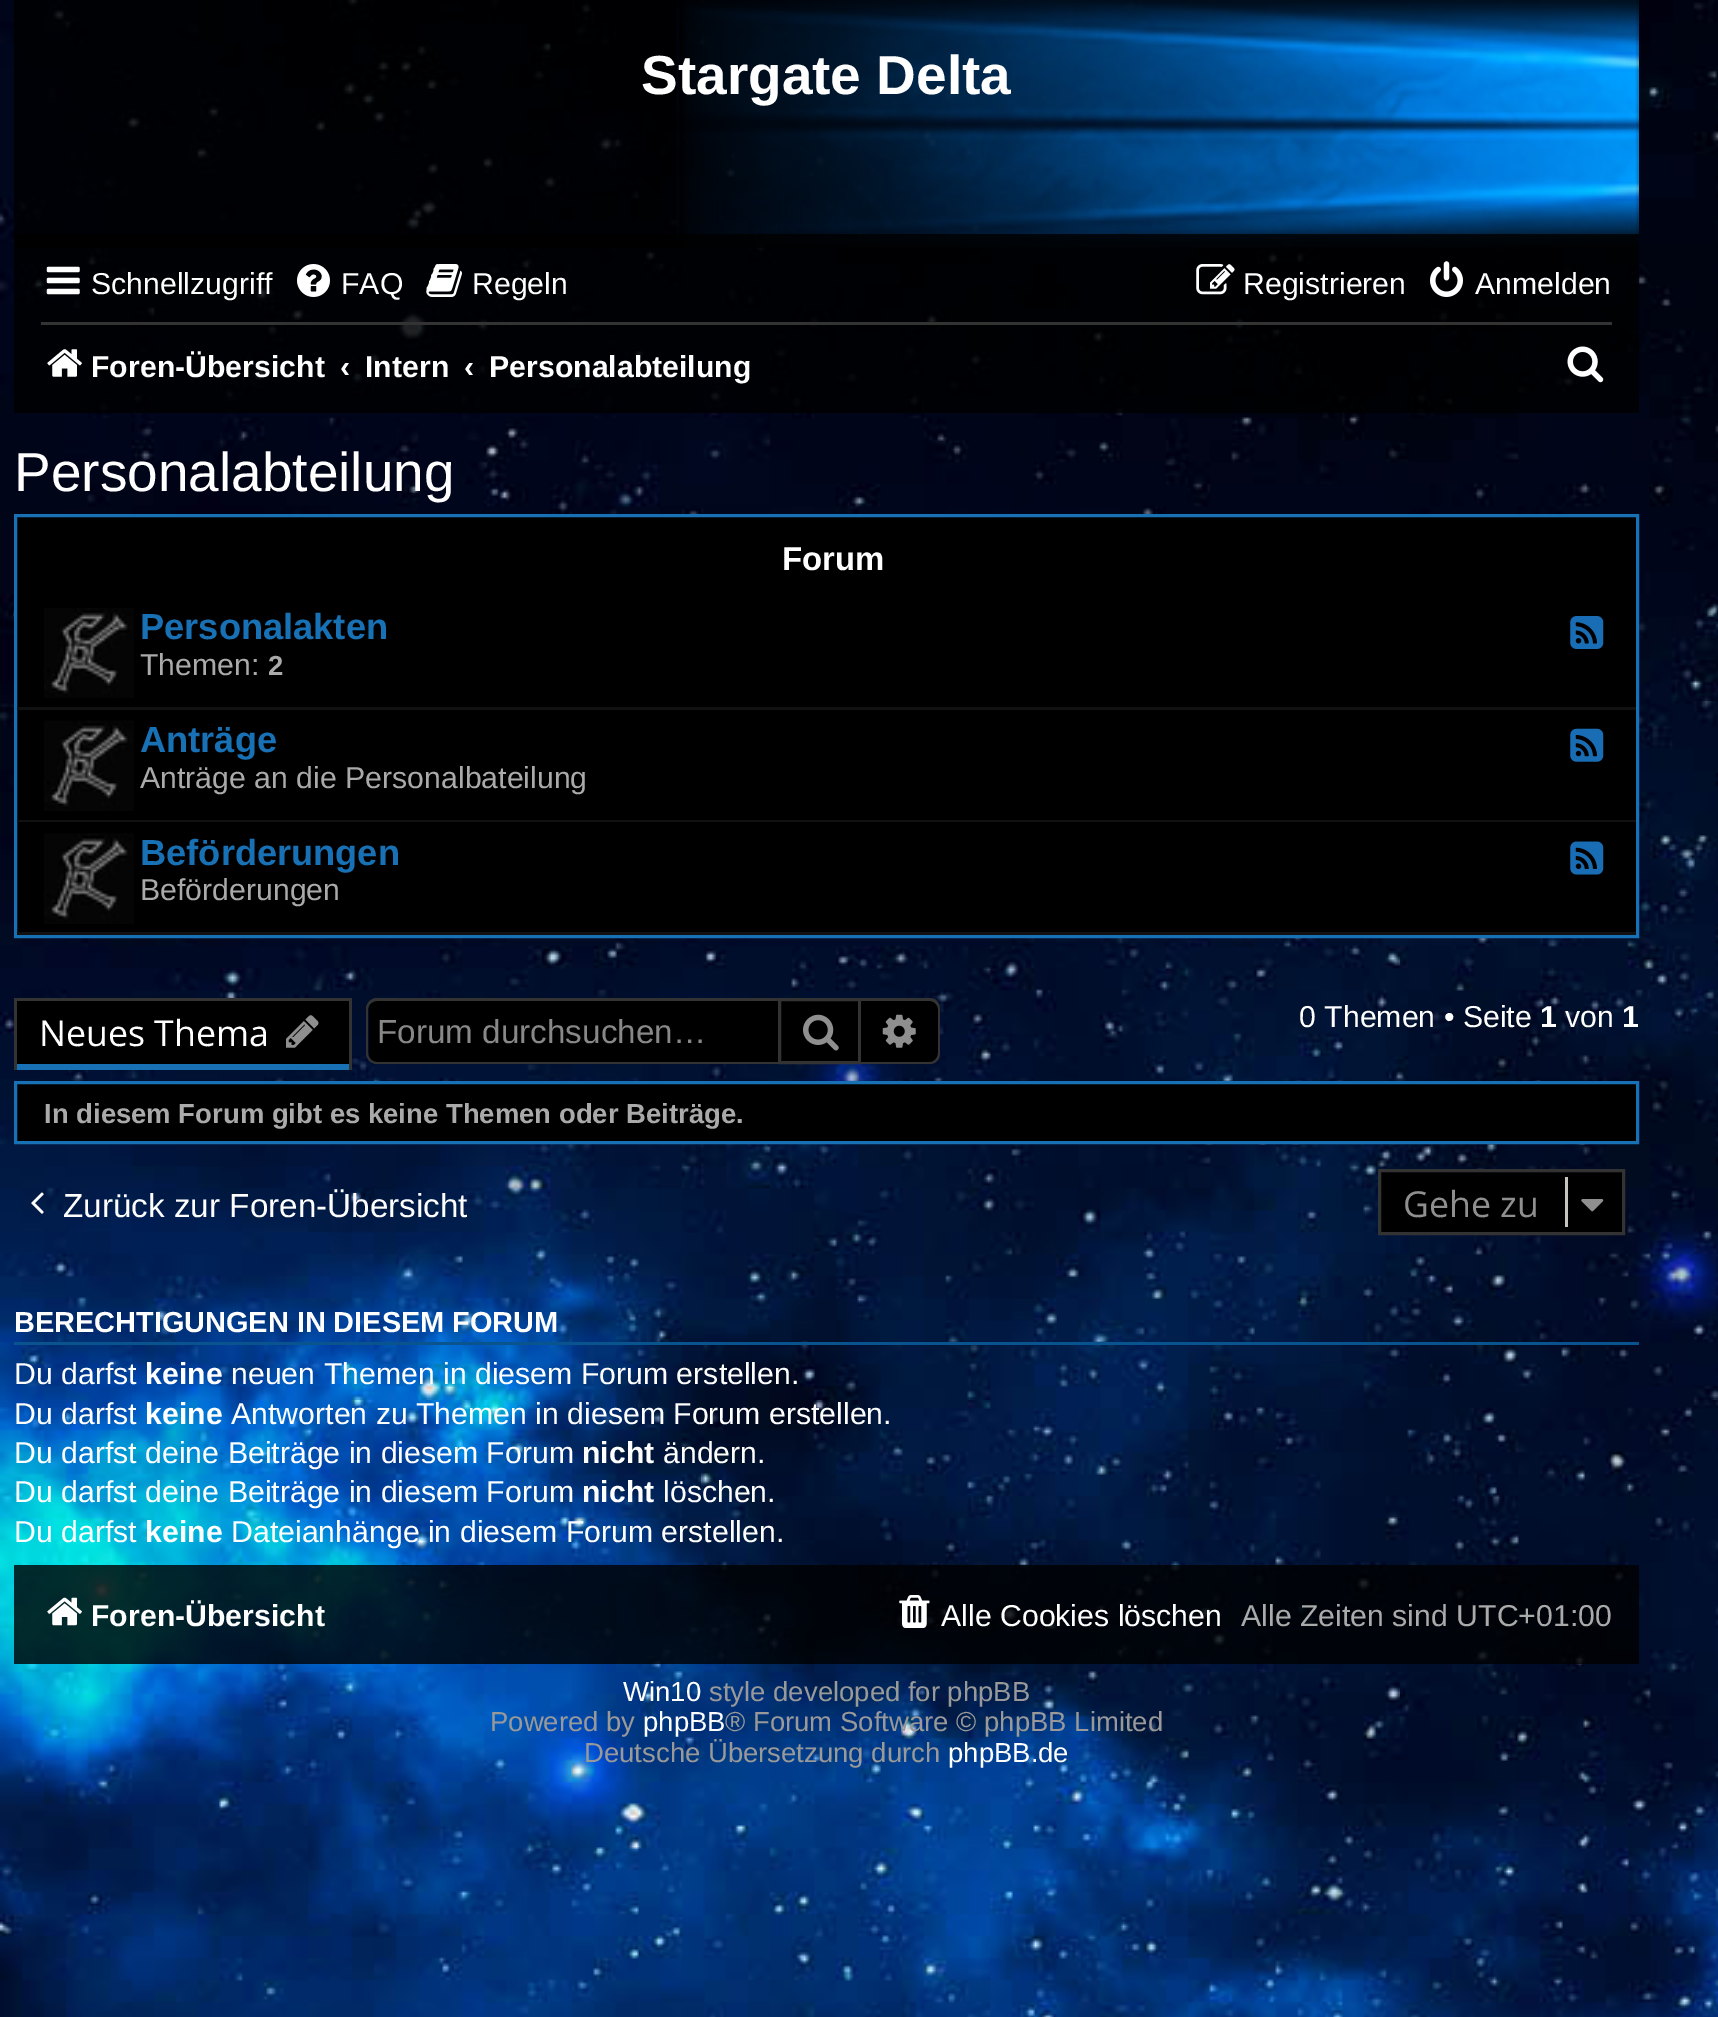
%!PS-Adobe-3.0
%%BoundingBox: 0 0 1718 2017
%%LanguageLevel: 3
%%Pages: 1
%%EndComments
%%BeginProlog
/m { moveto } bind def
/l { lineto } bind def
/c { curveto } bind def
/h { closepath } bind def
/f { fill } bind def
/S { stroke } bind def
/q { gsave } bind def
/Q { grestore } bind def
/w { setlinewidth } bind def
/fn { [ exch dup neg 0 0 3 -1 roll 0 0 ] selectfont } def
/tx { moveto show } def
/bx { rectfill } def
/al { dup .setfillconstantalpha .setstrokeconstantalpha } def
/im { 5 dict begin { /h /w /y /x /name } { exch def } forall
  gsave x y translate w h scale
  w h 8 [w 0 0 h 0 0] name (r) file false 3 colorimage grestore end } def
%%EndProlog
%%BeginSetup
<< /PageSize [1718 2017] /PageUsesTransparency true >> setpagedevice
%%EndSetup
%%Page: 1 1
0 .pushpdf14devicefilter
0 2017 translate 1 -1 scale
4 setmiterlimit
1 setgray
0 0 1718 2017 bx
(image0.raw) 0 0 1718 2017 im
0.8 al
0 setgray
14 0 1625 248 bx
1 al
(image1.raw) 676 0 963 248 im
/LiberationSans-Bold 55 fn
1 setgray
(Stargate Delta) 641 94 tx
0.8 al
0 setgray
14 234 1625 179 bx
1 al
(image2.raw) 46 266 34 29 im
/LiberationSans-Regular 30.25 fn
1 setgray
(Schnellzugriff) 91 294 tx
(image3.raw) 297 264 33 33 im
(FAQ) 341 294 tx
(image4.raw) 426 264 36 33 im
(Regeln) 472 294 tx
(image5.raw) 1196 264 39 31 im
(Registrieren) 1243 294 tx
(image6.raw) 1430 261 33 36 im
(Anmelden) 1475 294 tx
0.2 setgray
41 322 1571 3 bx
(image7.raw) 47 349 35 28 im
/LiberationSans-Bold 30.25 fn
1 setgray
(Foren-Übersicht) 91 377 tx
(‹) 340 377 tx
(Intern) 365 377 tx
(‹) 464 377 tx
(Personalabteilung) 489 377 tx
(image8.raw) 1567 346 37 37 im
/LiberationSans-Regular 55 fn
(Personalabteilung) 14 491 tx
0 setgray
17 517 1619 415 bx
0.094 0.439 0.71 setrgbcolor
3 w
15.5 515.5 1622 421 rectstroke
/LiberationSans-Bold 33 fn
1 setgray
(Forum) 782 570 tx
0.067 setgray
17 707 1619 3 bx
(image9.raw) 44 608 90 90 im
/LiberationSans-Bold 36.25 fn
0.094 0.439 0.71 setrgbcolor
(Personalakten) 140 639 tx
(image10.raw) 1570 616 34 33 im
/LiberationSans-Regular 30.25 fn
0.667 setgray
(Themen:) 140 675 tx
/LiberationSans-Bold 27.5 fn
(2) 268 675 tx
0.067 setgray
17 820 1619 2 bx
(image11.raw) 44 720 90 91 im
/LiberationSans-Bold 36.25 fn
0.094 0.439 0.71 setrgbcolor
(Anträge) 140 752 tx
(image12.raw) 1570 728 34 34 im
/LiberationSans-Regular 30.25 fn
0.667 setgray
(Anträge an die Personalbateilung) 140 788 tx
0.067 setgray
17 932 1619 3 bx
(image13.raw) 44 833 90 91 im
/LiberationSans-Bold 36.25 fn
0.094 0.439 0.71 setrgbcolor
(Beförderungen) 140 865 tx
(image14.raw) 1570 841 34 34 im
/LiberationSans-Regular 30.25 fn
0.667 setgray
(Beförderungen) 140 900 tx
0 setgray
17 1001 332 63 bx
0.094 0.439 0.71 setrgbcolor
17 1064 332 6 bx
0.2 setgray
14 998 338 3 bx
349 998 3 72 bx
14 998 3 72 bx
/OpenSans-Regular 35.75 fn
1 setgray
(Neues Thema) 39 1046 tx
(image15.raw) 286 1015 33 33 im
0 setgray
377 1001 m 778 1001 l 778 1062 l 377 1062 l 372.5 1062 369 1058.5 369 1054 c 369 1009 l 369 1004.5 372.5 1001 377 1001 c h f
0.2 setgray
377 998 m 778 998 l 778 1064 l 377 1064 l 371 1064 366 1059 366 1053 c 366 1009 l 366 1003 371 998 377 998 c h 377 1001 m 778 1001 l 778 1062 l 377 1062 l 372 1062 368 1058 368 1053 c 368 1009 l 368 1005 372 1001 377 1001 c h eofill
/LiberationSans-Regular 33.25 fn
0.533 setgray
(Forum durchsuchen…) 377 1043 tx
0 setgray
779.5 999.5 m 859.5 999.5 l 859.5 1062.5 l 779.5 1062.5 l h q f Q
0.2 setgray
S
(image16.raw) 803 1014 36 37 im
0 setgray
861 1001 m 930 1001 l 934.5 1001 938 1004.5 938 1009 c 938 1054 l 938 1058.5 934.5 1062 930 1062 c 861 1062 l h f
0.2 setgray
861 998 m 930 998 l 936 998 940 1003 940 1009 c 940 1053 l 940 1059 936 1064 930 1064 c 861 1064 l h 861 1001 m 930 1001 l 934 1001 938 1005 938 1009 c 938 1053 l 938 1058 934 1062 930 1062 c 861 1062 l h eofill
(image17.raw) 882 1014 34 34 im
/LiberationSans-Regular 30.25 fn
1 setgray
(0 Themen • Seite) 1299 1027 tx
/LiberationSans-Bold 30.25 fn
(1) 1540 1027 tx
/LiberationSans-Regular 30.25 fn
(von) 1565 1027 tx
/LiberationSans-Bold 30.25 fn
(1) 1622 1027 tx
0 setgray
15.5 1082.5 m 1637.5 1082.5 l 1637.5 1142.5 l 15.5 1142.5 l h q f Q
0.094 0.439 0.71 setrgbcolor
S
/LiberationSans-Bold 27.5 fn
0.667 setgray
(In diesem Forum gibt es keine Themen oder Beiträge.) 44 1123 tx
(image18.raw) 31 1192 13 22 im
/LiberationSans-Regular 33.25 fn
1 setgray
(Zurück zur Foren-Übersicht) 63 1217 tx
0 setgray
1379.5 1170.5 m 1623.5 1170.5 l 1623.5 1233.5 l 1379.5 1233.5 l h q f Q
0.2 setgray
S
/OpenSans-Regular 35.75 fn
0.561 setgray
(Gehe zu) 1403 1217 tx
0.78 0.765 0.749 setrgbcolor
1565 1177 3 50 bx
(image19.raw) 1581 1199 23 13 im
0.035 0.329 0.557 setrgbcolor
14 1342 1625 3 bx
/LiberationSans-Bold 28.9 fn
1 setgray
(BERECHTIGUNGEN IN DIESEM FORUM) 14 1332 tx
/LiberationSans-Regular 30.25 fn
(Du darfst) 14 1384 tx
/LiberationSans-Bold 30.25 fn
(keine) 145 1384 tx
/LiberationSans-Regular 30.25 fn
(neuen Themen in diesem Forum erstellen.) 231 1384 tx
(Du darfst) 14 1424 tx
/LiberationSans-Bold 30.25 fn
(keine) 145 1424 tx
/LiberationSans-Regular 30.25 fn
(Antworten zu Themen in diesem Forum erstellen.) 231 1424 tx
(Du darfst deine Beiträge in diesem Forum) 14 1463 tx
/LiberationSans-Bold 30.25 fn
(nicht) 582 1463 tx
/LiberationSans-Regular 30.25 fn
(ändern.) 663 1463 tx
(Du darfst deine Beiträge in diesem Forum) 14 1502 tx
/LiberationSans-Bold 30.25 fn
(nicht) 582 1502 tx
/LiberationSans-Regular 30.25 fn
(löschen.) 663 1502 tx
(Du darfst) 14 1542 tx
/LiberationSans-Bold 30.25 fn
(keine) 145 1542 tx
/LiberationSans-Regular 30.25 fn
(Dateianhänge in diesem Forum erstellen.) 231 1542 tx
0.8 al
0 setgray
14 1565 1625 99 bx
1 al
(image20.raw) 47 1597 35 29 im
/LiberationSans-Bold 30.25 fn
1 setgray
(Foren-Übersicht) 91 1626 tx
(image21.raw) 899 1595 31 33 im
/LiberationSans-Regular 30.25 fn
(Alle Cookies löschen) 941 1626 tx
0.667 setgray
(Alle Zeiten sind UTC+01:00) 1241 1626 tx
/LiberationSans-Regular 27.5 fn
1 setgray
(Win10) 623 1701 tx
0.6 setgray
(style developed for phpBB) 709 1701 tx
(Powered by) 490 1731 tx
1 setgray
(phpBB) 643 1731 tx
0.6 setgray
(® Forum Software © phpBB Limited) 725 1731 tx
(Deutsche Übersetzung durch) 584 1762 tx
1 setgray
(phpBB.de) 948 1762 tx
.poppdf14devicefilter showpage
%%EOF
